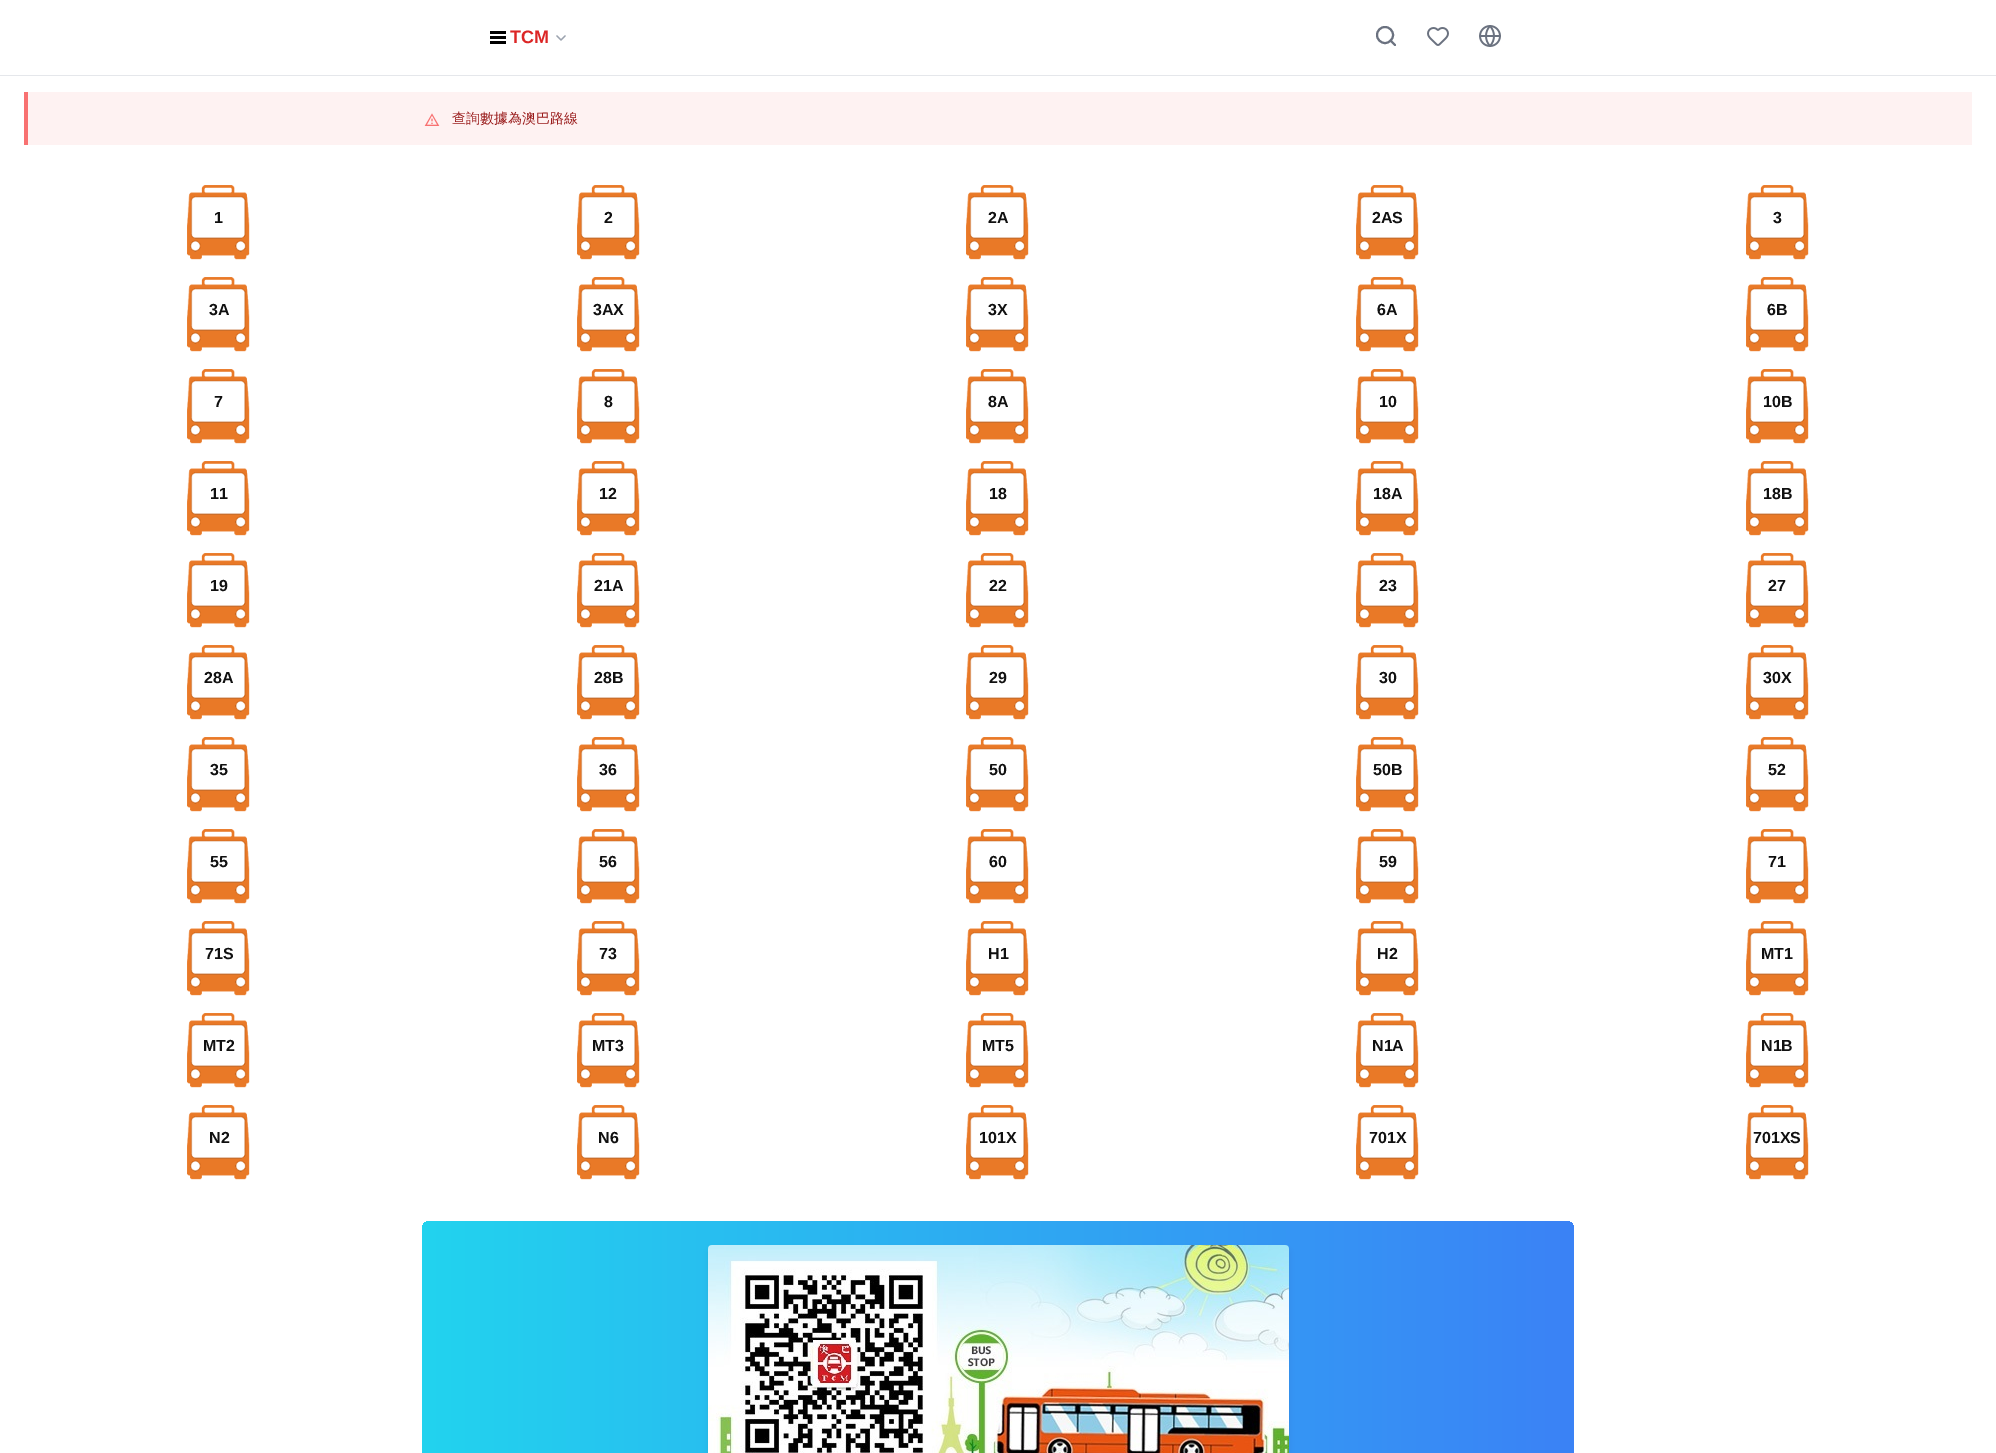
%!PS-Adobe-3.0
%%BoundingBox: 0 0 1996 1453
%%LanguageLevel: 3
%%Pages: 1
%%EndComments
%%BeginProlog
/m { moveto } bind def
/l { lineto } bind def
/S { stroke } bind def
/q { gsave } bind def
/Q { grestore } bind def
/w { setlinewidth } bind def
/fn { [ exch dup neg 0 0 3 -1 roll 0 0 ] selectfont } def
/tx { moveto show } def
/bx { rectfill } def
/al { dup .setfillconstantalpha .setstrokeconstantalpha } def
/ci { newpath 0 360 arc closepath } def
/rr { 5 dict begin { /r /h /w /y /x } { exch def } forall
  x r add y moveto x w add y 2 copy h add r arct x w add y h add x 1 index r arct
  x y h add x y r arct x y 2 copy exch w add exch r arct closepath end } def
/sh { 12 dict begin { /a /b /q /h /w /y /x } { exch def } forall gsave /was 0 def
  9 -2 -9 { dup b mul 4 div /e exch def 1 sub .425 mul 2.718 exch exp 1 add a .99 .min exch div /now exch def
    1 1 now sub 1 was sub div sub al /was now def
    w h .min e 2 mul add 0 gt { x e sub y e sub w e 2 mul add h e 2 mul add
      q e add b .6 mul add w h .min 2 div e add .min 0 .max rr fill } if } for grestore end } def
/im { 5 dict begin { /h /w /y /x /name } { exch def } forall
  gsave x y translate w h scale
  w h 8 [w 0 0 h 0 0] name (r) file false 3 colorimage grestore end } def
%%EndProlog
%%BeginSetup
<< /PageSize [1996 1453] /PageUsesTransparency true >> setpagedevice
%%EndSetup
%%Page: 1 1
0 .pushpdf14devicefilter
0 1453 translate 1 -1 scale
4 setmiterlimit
1 setgray
0 0 1996 1453 bx
0.898 0.906 0.922 setrgbcolor
0 75 1996 1 bx
0 setgray
490 31 16 3 bx
490 36 16 3 bx
490 41 16 3 bx
/LiberationSans-Bold 18 fn
0.863 0.149 0.149 setrgbcolor
(TCM) 510 43 tx
0.612 0.639 0.686 setrgbcolor
1.3 w
1 setlinecap
1 setlinejoin
557 36 m 561 40 l 565 36 l S
0.42 0.447 0.502 setrgbcolor
2 w
1395 45 m 1390.5 40.5 l S
0 setlinecap
0 setlinejoin
1385 35 8 ci S
(image0.raw) 1427 27 22 19 im
(image1.raw) 1479 25 22 22 im
0.996 0.949 0.949 setrgbcolor
28 92 1944 53 bx
0.973 0.443 0.443 setrgbcolor
24 92 4 53 bx
(image2.raw) 424 113 16 13 im
/WenQuanYiZenHei-Medium 14 fn
0.6 0.106 0.106 setrgbcolor
(查詢數據為澳巴路線) 452 123 tx
(image3.raw) 187 185 63 75 im
/LiberationSans-Bold 16 fn
0.063 setgray
(1) 214 223 tx
(image4.raw) 577 185 63 75 im
(2) 604 223 tx
(image4.raw) 966 185 63 75 im
(2A) 988 223 tx
(image5.raw) 1356 185 63 75 im
(2AS) 1372 223 tx
(image4.raw) 1746 185 63 75 im
(3) 1773 223 tx
(image3.raw) 187 277 63 75 im
(3A) 209 315 tx
(image4.raw) 577 277 63 75 im
(3AX) 593 315 tx
(image4.raw) 966 277 63 75 im
(3X) 988 315 tx
(image5.raw) 1356 277 63 75 im
(6A) 1377 315 tx
(image4.raw) 1746 277 63 75 im
(6B) 1767 315 tx
(image3.raw) 187 369 63 75 im
(7) 214 407 tx
(image4.raw) 577 369 63 75 im
(8) 604 407 tx
(image4.raw) 966 369 63 75 im
(8A) 988 407 tx
(image5.raw) 1356 369 63 75 im
(10) 1379 407 tx
(image4.raw) 1746 369 63 75 im
(10B) 1763 407 tx
(image3.raw) 187 461 63 75 im
(11) 210 499 tx
(image4.raw) 577 461 63 75 im
(12) 599 499 tx
(image4.raw) 966 461 63 75 im
(18) 989 499 tx
(image5.raw) 1356 461 63 75 im
(18A) 1373 499 tx
(image4.raw) 1746 461 63 75 im
(18B) 1763 499 tx
(image3.raw) 187 553 63 75 im
(19) 210 591 tx
(image4.raw) 577 553 63 75 im
(21A) 594 591 tx
(image4.raw) 966 553 63 75 im
(22) 989 591 tx
(image5.raw) 1356 553 63 75 im
(23) 1379 591 tx
(image4.raw) 1746 553 63 75 im
(27) 1768 591 tx
(image3.raw) 187 645 63 75 im
(28A) 204 683 tx
(image4.raw) 577 645 63 75 im
(28B) 594 683 tx
(image4.raw) 966 645 63 75 im
(29) 989 683 tx
(image5.raw) 1356 645 63 75 im
(30) 1379 683 tx
(image4.raw) 1746 645 63 75 im
(30X) 1763 683 tx
(image3.raw) 187 737 63 75 im
(35) 210 775 tx
(image4.raw) 577 737 63 75 im
(36) 599 775 tx
(image4.raw) 966 737 63 75 im
(50) 989 775 tx
(image5.raw) 1356 737 63 75 im
(50B) 1373 775 tx
(image4.raw) 1746 737 63 75 im
(52) 1768 775 tx
(image3.raw) 187 829 63 75 im
(55) 210 867 tx
(image4.raw) 577 829 63 75 im
(56) 599 867 tx
(image4.raw) 966 829 63 75 im
(60) 989 867 tx
(image5.raw) 1356 829 63 75 im
(59) 1379 867 tx
(image4.raw) 1746 829 63 75 im
(71) 1768 867 tx
(image3.raw) 187 921 63 75 im
(71S) 205 959 tx
(image4.raw) 577 921 63 75 im
(73) 599 959 tx
(image4.raw) 966 921 63 75 im
(H1) 988 959 tx
(image5.raw) 1356 921 63 75 im
(H2) 1377 959 tx
(image4.raw) 1746 921 63 75 im
(MT1) 1761 959 tx
(image3.raw) 187 1013 63 75 im
(MT2) 203 1051 tx
(image4.raw) 577 1013 63 75 im
(MT3) 592 1051 tx
(image4.raw) 966 1013 63 75 im
(MT5) 982 1051 tx
(image5.raw) 1356 1013 63 75 im
(N1A) 1372 1051 tx
(image4.raw) 1746 1013 63 75 im
(N1B) 1761 1051 tx
(image3.raw) 187 1105 63 75 im
(N2) 209 1143 tx
(image4.raw) 577 1105 63 75 im
(N6) 598 1143 tx
(image4.raw) 966 1105 63 75 im
(101X) 979 1143 tx
(image5.raw) 1356 1105 63 75 im
(701X) 1369 1143 tx
(image4.raw) 1746 1105 63 75 im
(701XS) 1753 1143 tx
q 422 1221 1152 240 8 rr clip newpath
<< /ShadingType 2 /ColorSpace /DeviceRGB /Coords [422 1393 1574 1393] /Extend [true true] /Function << /FunctionType 2 /Domain [0 1] /C0 [0.133 0.827 0.933] /C1 [0.231 0.51 0.965] /N 1 >> >> shfill Q
0 setgray
709 1250 579 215 3 3 0.1 sh
(image6.raw) 708 1245 581 208 im
.poppdf14devicefilter showpage
%%EOF
